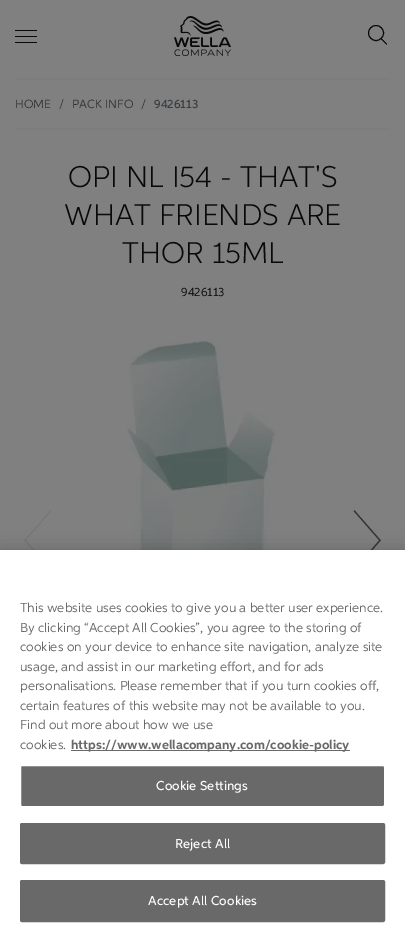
%!PS-Adobe-3.0
%%BoundingBox: 0 0 405 938
%%LanguageLevel: 3
%%Pages: 1
%%EndComments
%%BeginProlog
/m { moveto } bind def
/l { lineto } bind def
/h { closepath } bind def
/f { fill } bind def
/S { stroke } bind def
/q { gsave } bind def
/Q { grestore } bind def
/fn { [ exch dup neg 0 0 3 -1 roll 0 0 ] selectfont } def
/tx { moveto show } def
/bx { rectfill } def
/al { dup .setfillconstantalpha .setstrokeconstantalpha } def
/ci { newpath 0 360 arc closepath } def
/rr { 5 dict begin { /r /h /w /y /x } { exch def } forall
  x r add y moveto x w add y 2 copy h add r arct x w add y h add x 1 index r arct
  x y h add x y r arct x y 2 copy exch w add exch r arct closepath end } def
/sh { 12 dict begin { /a /b /q /h /w /y /x } { exch def } forall gsave /was 0 def
  9 -2 -9 { dup b mul 4 div /e exch def 1 sub .425 mul 2.718 exch exp 1 add a .99 .min exch div /now exch def
    1 1 now sub 1 was sub div sub al /was now def
    w h .min e 2 mul add 0 gt { x e sub y e sub w e 2 mul add h e 2 mul add
      q e add b .6 mul add w h .min 2 div e add .min 0 .max rr fill } if } for grestore end } def
/im { 5 dict begin { /h /w /y /x /name } { exch def } forall
  gsave x y translate w h scale
  w h 8 [w 0 0 h 0 0] name (r) file false 3 colorimage grestore end } def
%%EndProlog
%%BeginSetup
<< /PageSize [405 938] /PageUsesTransparency true >> setpagedevice
%%EndSetup
%%Page: 1 1
0 .pushpdf14devicefilter
0 938 translate 1 -1 scale
4 setmiterlimit
0.502 setgray
0 0 405 938 bx
0.035 setgray
15 30 22 1 bx
15 36 22 1 bx
15 42 22 1 bx
(image0.raw) 174 16 57 40 im
371.5 28.5 m 387 44 l 386.5 44.5 l 371 29 l h f
371.5 28.5 m 387 44 l 386.5 44.5 l 371 29 l h f
0.502 setgray
376 33 7.5 ci q f Q
0.035 setgray
S
0.486 0.49 0.49 setrgbcolor
15 78 375 2 bx
15 128 375 2 bx
/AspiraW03-Regular 12 fn
0.204 setgray
(HOME) 15 108 tx
(/) 59 108 tx
(PACK INFO) 72 108 tx
(/) 141 108 tx
/AspiraW03-Medium 12 fn
0.212 0.231 0.247 setrgbcolor
(9426113) 154 108 tx
/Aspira-Light 30 fn
0.035 setgray
(OPI NL I54 - THAT'S) 68 187 tx
(WHAT FRIENDS ARE) 64 225 tx
(THOR 15ML) 122 263 tx
/AspiraW03-Regular 12 fn
(9426113) 181 296 tx
(image1.raw) 24 510 27 40 im
(image2.raw) 127 339 186 211 im
(image3.raw) 353 510 28 40 im
0 setgray
0 550 405 388 0 9 0.2 sh
1 setgray
0 550 405 388 bx
/AspiraW03-Regular 13 fn
0.412 setgray
(This website uses cookies to give you a better user experience.) 20 612 tx
(By clicking “Accept All Cookies”, you agree to the storing of) 20 632 tx
(cookies on your device to enhance site navigation, analyze site) 20 651 tx
(usage, and assist in our marketing effort, and for ads) 20 671 tx
(personalisations. Please remember that if you turn cookies off,) 20 690 tx
(certain features of this website may not be available to you.) 20 710 tx
(Find out more about how we use) 20 729 tx
(cookies.) 20 749 tx
71 750 279 1 bx
/AspiraW03-Bold 13 fn
(https://www.wellacompany.com/cookie-policy) 71 749 tx
20.5 765.5 364 41 1.5 rr q f Q
1 setgray
S
/AspiraW03-Medium 13 fn
156 790 m 0.1 0 (Cookie Settings) ashow
0.412 setgray
20.5 823.5 364 40 1.5 rr q f Q
S
1 setgray
175 848 m 0.1 0 (Reject All) ashow
0.412 setgray
20.5 880.5 364 41 1.5 rr q f Q
S
1 setgray
148 905 m 0.1 0 (Accept All Cookies) ashow
.poppdf14devicefilter showpage
%%EOF
